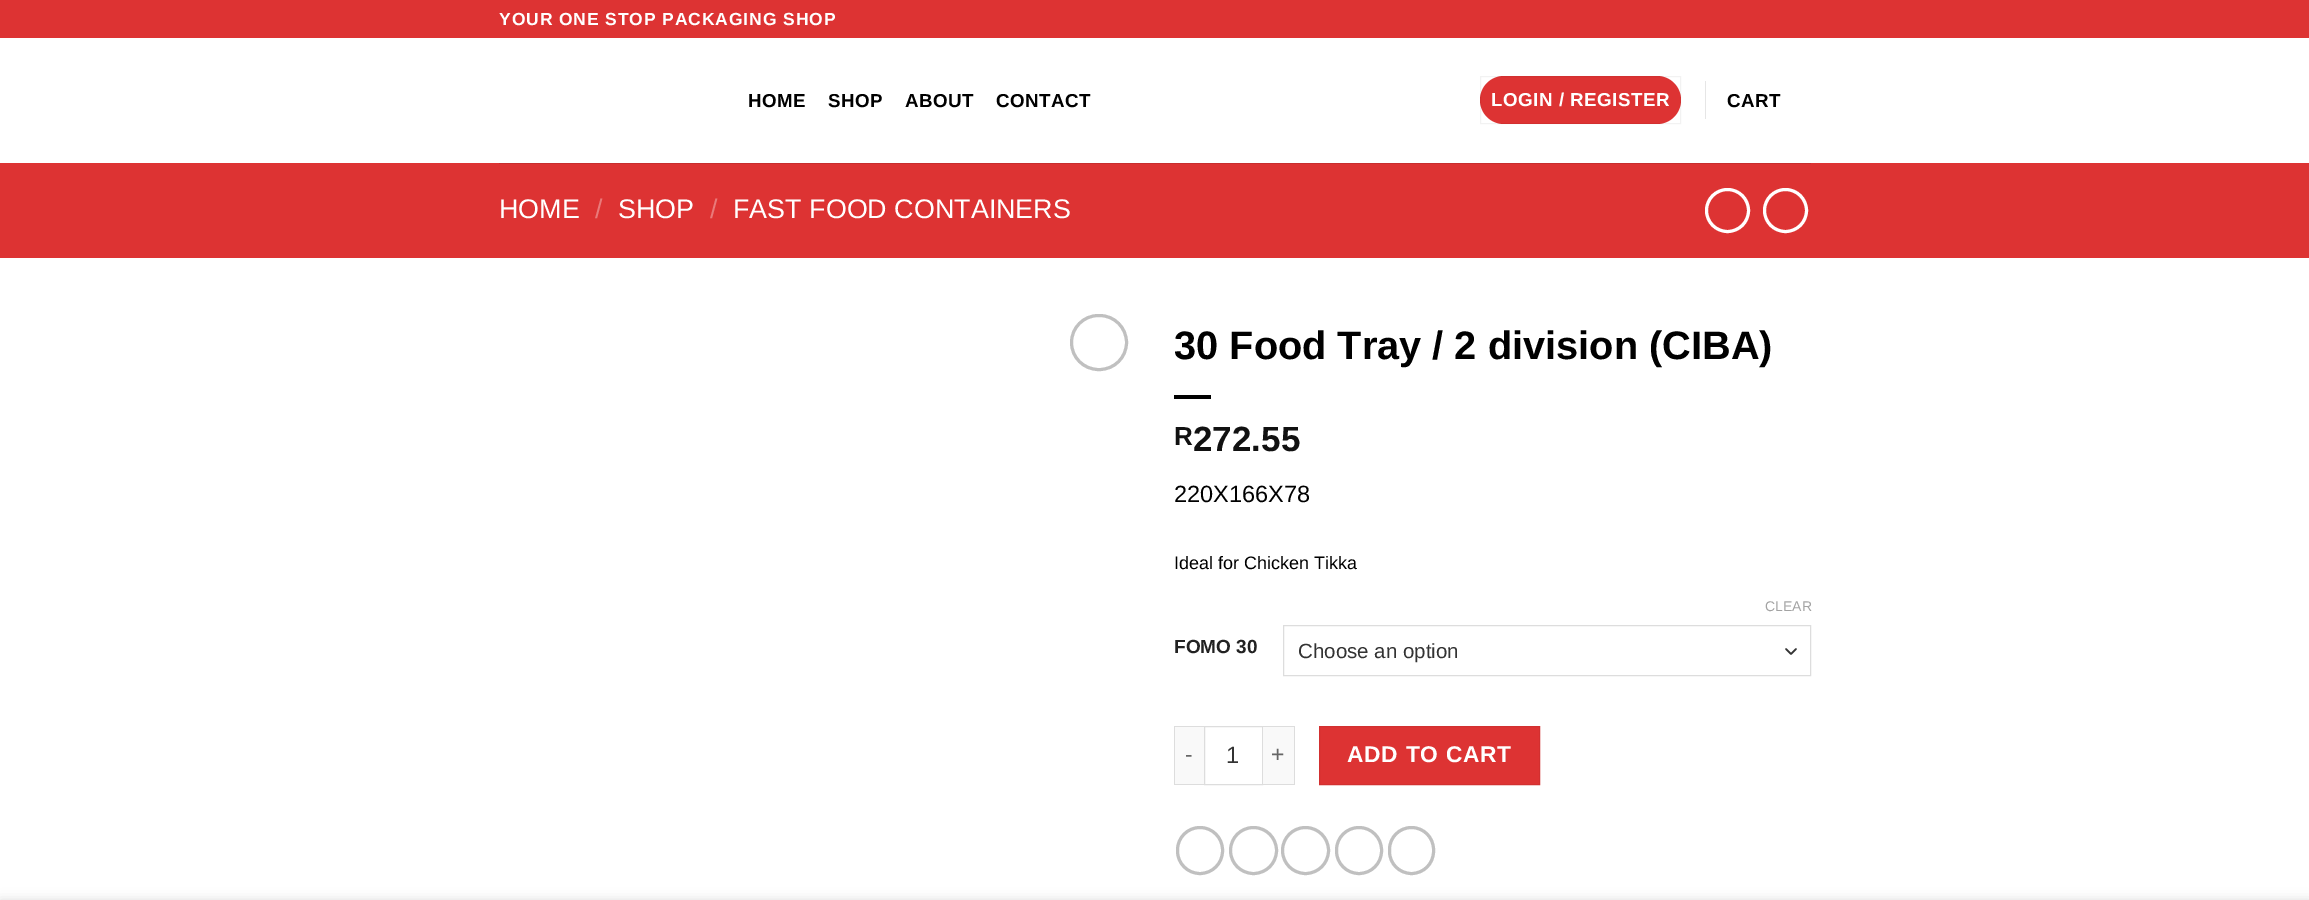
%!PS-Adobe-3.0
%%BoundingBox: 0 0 2309 900
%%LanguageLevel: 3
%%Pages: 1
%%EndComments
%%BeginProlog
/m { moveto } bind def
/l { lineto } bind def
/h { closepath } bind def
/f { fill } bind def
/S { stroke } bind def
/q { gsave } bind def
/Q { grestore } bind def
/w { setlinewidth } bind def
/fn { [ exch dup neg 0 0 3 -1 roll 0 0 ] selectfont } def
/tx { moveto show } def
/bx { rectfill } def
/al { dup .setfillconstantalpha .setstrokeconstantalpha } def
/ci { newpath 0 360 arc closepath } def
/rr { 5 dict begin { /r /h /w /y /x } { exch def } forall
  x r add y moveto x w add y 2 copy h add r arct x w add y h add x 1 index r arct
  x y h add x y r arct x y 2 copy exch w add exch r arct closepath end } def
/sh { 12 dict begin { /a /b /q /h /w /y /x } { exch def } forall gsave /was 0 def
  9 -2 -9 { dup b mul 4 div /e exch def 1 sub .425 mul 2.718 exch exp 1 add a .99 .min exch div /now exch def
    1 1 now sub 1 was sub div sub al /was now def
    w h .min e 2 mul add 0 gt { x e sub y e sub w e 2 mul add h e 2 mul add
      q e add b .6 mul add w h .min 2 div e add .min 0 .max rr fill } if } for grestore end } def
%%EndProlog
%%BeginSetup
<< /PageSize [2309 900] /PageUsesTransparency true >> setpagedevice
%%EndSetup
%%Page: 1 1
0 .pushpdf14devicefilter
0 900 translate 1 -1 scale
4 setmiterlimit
1 setgray
0 0 2309 900 bx
0.867 0.2 0.2 setrgbcolor
0 0 2309 38 bx
/LiberationSans-Bold 17.5 fn
1 setgray
499 25 m 0.9 0 (YOUR ONE STOP PACKAGING SHOP) ashow
/LiberationSans-Bold 18.75 fn
0 setgray
748 107 m 0.5 0 (HOME) ashow
828 107 m 0.5 0 (SHOP) ashow
905 107 m 0.5 0 (ABOUT) ashow
996 107 m 0.5 0 (CONTACT) ashow
0.867 0.2 0.2 setrgbcolor
1480 76 201 48 24 rr f
0.05 al
0 setgray
1480.5 76.5 200 47 rectstroke
1 al
1 setgray
1491 106 m 0.5 0 (LOGIN / REGISTER) ashow
0.902 setgray
1705 81 1 38 bx
0 setgray
1727 107 m 0.5 0 (CART) ashow
0.867 0.2 0.2 setrgbcolor
0 163 2309 95 bx
0.78 0.18 0.18 setrgbcolor
499 163 1312 1 bx
/LiberationSans-Regular 26.9 fn
1 setgray
(HOME) 499 218 tx
0.914 0.478 0.478 setrgbcolor
(/) 595 218 tx
1 setgray
(SHOP) 618 218 tx
0.914 0.478 0.478 setrgbcolor
(/) 710 218 tx
1 setgray
(FAST FOOD CONTAINERS) 733 218 tx
3 w
1727.5 210.5 21 ci S
1785.5 210.5 21 ci S
0.753 setgray
1071.5 315.5 55 54 27 rr S
/LiberationSans-Bold 39.75 fn
0 setgray
(30 Food Tray / 2 division \(CIBA\)) 1174 359 tx
1174 395 37 4 bx
/LiberationSans-Bold 26 fn
0.067 setgray
(R) 1174 445 tx
/LiberationSans-Bold 35 fn
(272.55) 1193 451 tx
/LiberationSans-Regular 23.5 fn
0 setgray
(220X166X78) 1174 502 tx
/LiberationSans-Regular 18 fn
(Ideal for Chicken Tikka) 1174 569 tx
/LiberationSans-Bold 19 fn
0.133 setgray
(FOMO 30) 1174 653 tx
/LiberationSans-Regular 14 fn
0.639 setgray
(CLEAR) 1765 611 tx
0.2 setgray
1.7 w
1 setlinecap
1 setlinejoin
1786 649 m 1791 654 l 1796 649 l S
0.867 setgray
1 w
0 setlinecap
0 setlinejoin
1283.5 625.5 527 50 rectstroke
/LiberationSans-Regular 20.5 fn
0.2 setgray
(Choose an option) 1298 658 tx
0.976 setgray
1175 727 29 57 bx
0.867 setgray
1174 726 30 1 bx
1174 784 30 1 bx
1174 726 1 59 bx
/LiberationSans-Regular 22.75 fn
0.4 setgray
1185 762 m 0.75 0 (-) ashow
0.867 setgray
1204.5 726.5 58 58 rectstroke
/LiberationSans-Regular 23.5 fn
0.2 setgray
(1) 1226 763 tx
0.976 setgray
1263 727 31 57 bx
0.867 setgray
1263 726 32 1 bx
1294 726 1 59 bx
1263 784 32 1 bx
/LiberationSans-Regular 22.75 fn
0.4 setgray
1271 762 m 0.75 0 (+) ashow
0.867 0.2 0.2 setrgbcolor
1319.5 726.5 m 1539.5 726.5 l 1539.5 784.5 l 1319.5 784.5 l h q f Q
0.824 0.188 0.188 setrgbcolor
S
/LiberationSans-Bold 22.75 fn
1 setgray
1347 762 m 0.75 0 (ADD TO CART) ashow
0.753 setgray
3 w
1177.5 827.5 45 46 22.5 rr S
1253.5 850.5 23 ci S
1305.5 850.5 23 ci S
1336.5 827.5 45 46 22.5 rr S
1389.5 827.5 44 46 22 rr S
0 setgray
0 900 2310 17 0 5.5 0.14 sh
.poppdf14devicefilter showpage
%%EOF
